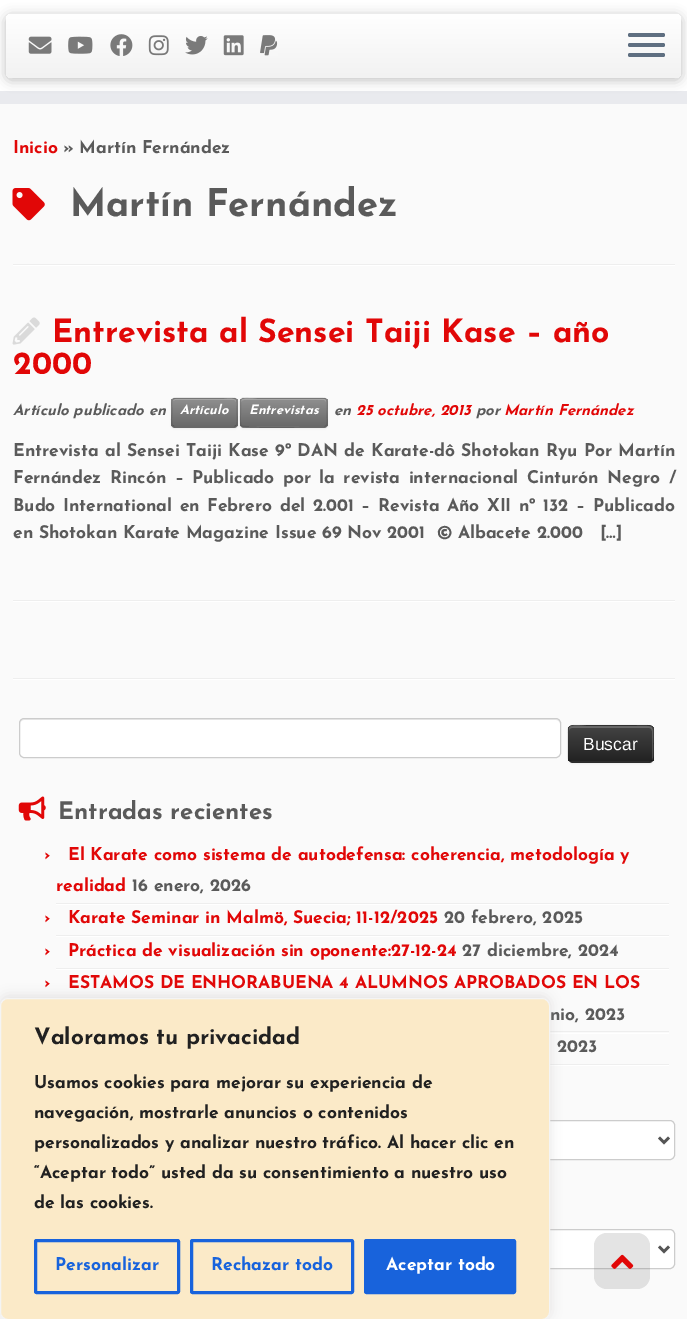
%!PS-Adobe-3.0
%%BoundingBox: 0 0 687 1319
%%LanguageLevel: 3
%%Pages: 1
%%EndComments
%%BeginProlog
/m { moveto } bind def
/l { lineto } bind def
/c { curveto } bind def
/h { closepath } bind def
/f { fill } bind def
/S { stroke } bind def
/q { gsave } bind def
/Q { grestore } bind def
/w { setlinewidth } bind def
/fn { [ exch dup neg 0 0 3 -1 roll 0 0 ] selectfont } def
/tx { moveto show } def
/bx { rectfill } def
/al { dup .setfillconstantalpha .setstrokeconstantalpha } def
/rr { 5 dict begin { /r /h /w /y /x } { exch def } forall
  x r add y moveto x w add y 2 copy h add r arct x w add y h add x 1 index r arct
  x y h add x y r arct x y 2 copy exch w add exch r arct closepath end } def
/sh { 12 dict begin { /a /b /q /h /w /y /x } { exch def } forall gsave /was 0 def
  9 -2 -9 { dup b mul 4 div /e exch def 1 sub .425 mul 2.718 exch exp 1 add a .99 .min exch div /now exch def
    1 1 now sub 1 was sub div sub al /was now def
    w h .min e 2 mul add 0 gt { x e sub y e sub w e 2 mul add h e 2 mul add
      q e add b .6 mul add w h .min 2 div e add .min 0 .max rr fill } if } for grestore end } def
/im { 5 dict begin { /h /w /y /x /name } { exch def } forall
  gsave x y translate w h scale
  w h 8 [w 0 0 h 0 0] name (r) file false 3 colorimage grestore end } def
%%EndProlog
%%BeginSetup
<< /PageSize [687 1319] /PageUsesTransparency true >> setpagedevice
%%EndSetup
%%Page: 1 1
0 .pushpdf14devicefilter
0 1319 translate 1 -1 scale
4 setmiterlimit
0.98 setgray
0 0 687 1319 bx
1 setgray
0 0 687 91 bx
0.914 0.918 0.933 setrgbcolor
0 91 687 13 bx
0 setgray
6 16 675 64 5 6 0.25 sh
q 6 14 675 64 5 rr clip newpath
<< /ShadingType 2 /ColorSpace /DeviceRGB /Coords [344 14 344 78] /Extend [true true] /Function << /FunctionType 2 /Domain [0 1] /C0 [1 1 1] /C1 [0.949 0.949 0.949] /N 1 >> >> shfill Q
(image0.raw) 28 36 24 18 im
(image1.raw) 68 36 25 18 im
(image2.raw) 110 34 23 22 im
(image3.raw) 148 35 21 21 im
(image4.raw) 185 36 23 19 im
(image5.raw) 223 35 21 21 im
(image6.raw) 260 35 18 21 im
0.373 0.435 0.506 setrgbcolor
628 33 37 4 2 rr f
628 43 37 4 2 rr f
628 53 37 4 2 rr f
/JosefinSans-Thin 17.5 fn
0.882 0.027 0.027 setrgbcolor
(Inicio) 13 153 tx
0.353 setgray
(» Martín Fernández) 63 153 tx
(image7.raw) 12 188 33 33 im
/JosefinSans-Thin 38 fn
(Martín Fernández) 70 216 tx
0.933 setgray
13 264 662 1 bx
1 setgray
13 265 662 1 bx
(image8.raw) 12 317 28 28 im
/JosefinSans-Thin 32 fn
0.882 0.027 0.027 setrgbcolor
(Entrevista al Sensei Taiji Kase – año) 52 342 tx
(2000) 13 374 tx
/JosefinSans-ThinItalic 15 fn
0.353 setgray
(Artículo publicado en) 13 415 tx
0 setgray
171 399 67 30 4 1 0.05 sh
0.502 setgray
171 398 67 30 4 rr f
q
171 398 67 30 4 rr clip newpath
q 171 399 m 238 399 l 238 426 l 171 426 l h clip newpath
<< /ShadingType 2 /ColorSpace /DeviceRGB /Coords [204 399 204 426] /Extend [true true] /Function << /FunctionType 2 /Domain [0 1] /C0 [0.561 0.561 0.561] /C1 [0.412 0.412 0.412] /N 1 >> >> shfill Q
Q
0.647 setgray
175 400 m 234 400 l 235 400 236 401 236 402 c 236 397 226 399 224 399 c 175 399 l 173 401 l h f
0.25 al
0 setgray
1.2 w
236 426 m 234 427 l 174.5 427 l 173 426 l S
0.1 al
173 426 m 170.5 424 172 415 172 412.5 c 172 396.5 169 398 185 398 c 224 398 l 239.5 398 237 396.5 237 412.5 c 237 415 238 424 236 426 c S
/JosefinSans-ThinItalic 13 fn
1 al
1 setgray
(Artículo) 180 414 tx
0 setgray
240 399 88 30 4 1 0.05 sh
0.502 setgray
240 398 88 30 4 rr f
q
240 398 88 30 4 rr clip newpath
q 240 399 m 328 399 l 328 426 l 240 426 l h clip newpath
<< /ShadingType 2 /ColorSpace /DeviceRGB /Coords [284 399 284 426] /Extend [true true] /Function << /FunctionType 2 /Domain [0 1] /C0 [0.561 0.561 0.561] /C1 [0.412 0.412 0.412] /N 1 >> >> shfill Q
Q
0.2 al
1 setgray
244 400 m 324 400 l 325 400 326 401 326 402 c 326 400 325 399 324 399 c 257 399 l 257 399 241 395 241 402 c 241 401 242 400 244 400 c h f
1 al
0.376 setgray
326 426 m 324 427 l 310.5 427 l 303 427 244 428 242 426 c 241.5 426 l S
0.1 al
0 setgray
241.5 426 m 239.5 424 240.5 415 240.5 412.5 c 240.5 395 238 398 257 398 c 310.5 398 l 331 398 327 395.5 327 416 c 327 419 328 423.5 326 426 c S
1 al
1 setgray
(Entrevistas) 249 414 tx
/JosefinSans-ThinItalic 15 fn
0.353 setgray
(en) 334 415 tx
0.882 0.027 0.027 setrgbcolor
(25 octubre, 2013) 356 415 tx
0.353 setgray
(por) 476 415 tx
0.882 0.027 0.027 setrgbcolor
(Martín Fernández) 504 415 tx
/JosefinSans-Thin 17.5 fn
0.353 setgray
13 456 m 0.6 0 32 (Entrevista al Sensei Taiji Kase 9º DAN de Karate-dô Shotokan Ryu Por Martín) widthshow
13 483 m 2.75 0 32 (Fernández Rincón – Publicado por la revista internacional Cinturón Negro /) widthshow
13 511 m 1.8 0 32 (Budo International en Febrero del 2.001 – Revista Año XII nº 132 – Publicado) widthshow
(en Shotokan Karate Magazine Issue 69 Nov 2001  © Albacete 2.000   […]) 13 538 tx
0.933 setgray
13 600 662 1 bx
1 setgray
13 601 662 1 bx
0.933 setgray
13 678 662 1 bx
1 setgray
13 679 662 1 bx
19 718 542 40 5 rr f
0.925 setgray
24 720 m 556 720 l 558 720 560 722 560 724 c 560 723 l 560 721 558 719 556 719 c 24 719 l 22 719 20 721 20 723 c 20 724 l 20 722 22 720 24 720 c h f
0.8 setgray
1 w
19.5 718.5 541 39 4.5 rr S
0 setgray
568 726 86 38 5 1 0.05 sh
0.212 setgray
568 725 86 38 5 rr f
q
568 725 86 38 5 rr clip newpath
q 568 726 m 654 726 l 654 761 l 568 761 l h clip newpath
<< /ShadingType 2 /ColorSpace /DeviceRGB /Coords [611 726 611 761] /Extend [true true] /Function << /FunctionType 2 /Domain [0 1] /C0 [0.267 0.267 0.267] /C1 [0.133 0.133 0.133] /N 1 >> >> shfill Q
Q
0.2 al
1 setgray
572 728 m 649 728 l 653 728 652 733 652 736 c 652 760 l 654 757 653 747 653 744 c 653 724 656 726 636 726 c 586 726 l 585 726 571 723 569 728 c 569 731 l 569 729 570 728 572 728 c h f
0.25 al
0 setgray
1.2 w
652 760.5 m 649 762 l 572 762 l 569.5 760.5 l S
0.1 al
569.5 760.5 m 567.5 758.5 568 755.5 568 753 c 568 744 l 568 723.5 565 725.5 585 725.5 c 636 725.5 l 656.5 725.5 653 723.5 653 744 c 653 753 l 653 755.5 654 758.5 652 760.5 c S
/LiberationSans-Regular 17.5 fn
1 al
1 setgray
(Buscar) 583 750 tx
(image9.raw) 18 796 28 25 im
/JosefinSans-Thin 24 fn
0.353 setgray
(Entradas recientes) 58 819 tx
0.933 setgray
56 903 613 1 bx
/JosefinSans-Thin 17.5 fn
0.882 0.027 0.027 setrgbcolor
(›) 44 860 tx
(El Karate como sistema de autodefensa: coherencia, metodología y) 68 860 tx
(realidad) 56 891 tx
0.353 setgray
(16 enero, 2026) 132 891 tx
1 setgray
56 904 613 1 bx
0.933 setgray
56 935 613 1 bx
0.882 0.027 0.027 setrgbcolor
(›) 44 923 tx
(Karate Seminar in Malmö, Suecia; 11-12/2025) 68 923 tx
0.353 setgray
(20 febrero, 2025) 444 923 tx
1 setgray
56 936 613 1 bx
0.933 setgray
56 968 613 1 bx
0.882 0.027 0.027 setrgbcolor
(›) 44 956 tx
(Práctica de visualización sin oponente:27-12-24) 68 956 tx
0.353 setgray
(27 diciembre, 2024) 462 956 tx
1 setgray
56 969 613 1 bx
0.933 setgray
550 1031 119 1 bx
0.882 0.027 0.027 setrgbcolor
(›) 44 988 tx
(ESTAMOS DE ENHORABUENA 4 ALUMNOS APROBADOS EN LOS) 68 988 tx
0.353 setgray
(nio, 2023) 550 1020 tx
1 setgray
550 1033 119 1 bx
0.933 setgray
550 1064 119 1 bx
0.353 setgray
(2023) 557 1052 tx
1 setgray
550 1065 119 1 bx
19.5 1120.5 655 39 4.5 rr q f Q
0.8 setgray
1 w
S
0.333 setgray
2.5 w
659 1137.5 m 664 1142.5 l 669 1137.5 l S
1 setgray
19.5 1229.5 655 39 4.5 rr q f Q
0.8 setgray
1 w
S
0.333 setgray
2.5 w
659 1246.5 m 664 1251.5 l 669 1246.5 l S
0.675 0.671 0.671 setrgbcolor
0 996 550 323 8 6 0.3 sh
0.984 0.918 0.784 setrgbcolor
0.5 998.5 549 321 7.5 rr q f Q
0.957 setgray
1 w
S
/JosefinSans-Thin 22.5 fn
0.129 setgray
(Valoramos tu privacidad) 34 1044 tx
/JosefinSans-Thin 17.5 fn
(Usamos cookies para mejorar su experiencia de) 34 1088 tx
(navegación, mostrarle anuncios o contenidos) 34 1118 tx
(personalizados y analizar nuestro tráfico. Al hacer clic en) 34 1148 tx
(“Aceptar todo” usted da su consentimiento a nuestro uso) 34 1178 tx
(de las cookies.) 34 1208 tx
0.094 0.388 0.863 setrgbcolor
3 w
35.5 1240.5 143 52 1 rr S
(Personalizar) 55 1270 tx
191.5 1240.5 161 52 1 rr S
(Rechazar todo) 211 1270 tx
365.5 1240.5 149 52 1 rr q f Q
S
1 setgray
(Aceptar todo) 386 1270 tx
0.2 al
0.467 setgray
594 1233 56 56 13 rr f
1 al
(image10.raw) 611 1254 23 15 im
.poppdf14devicefilter showpage
%%EOF
